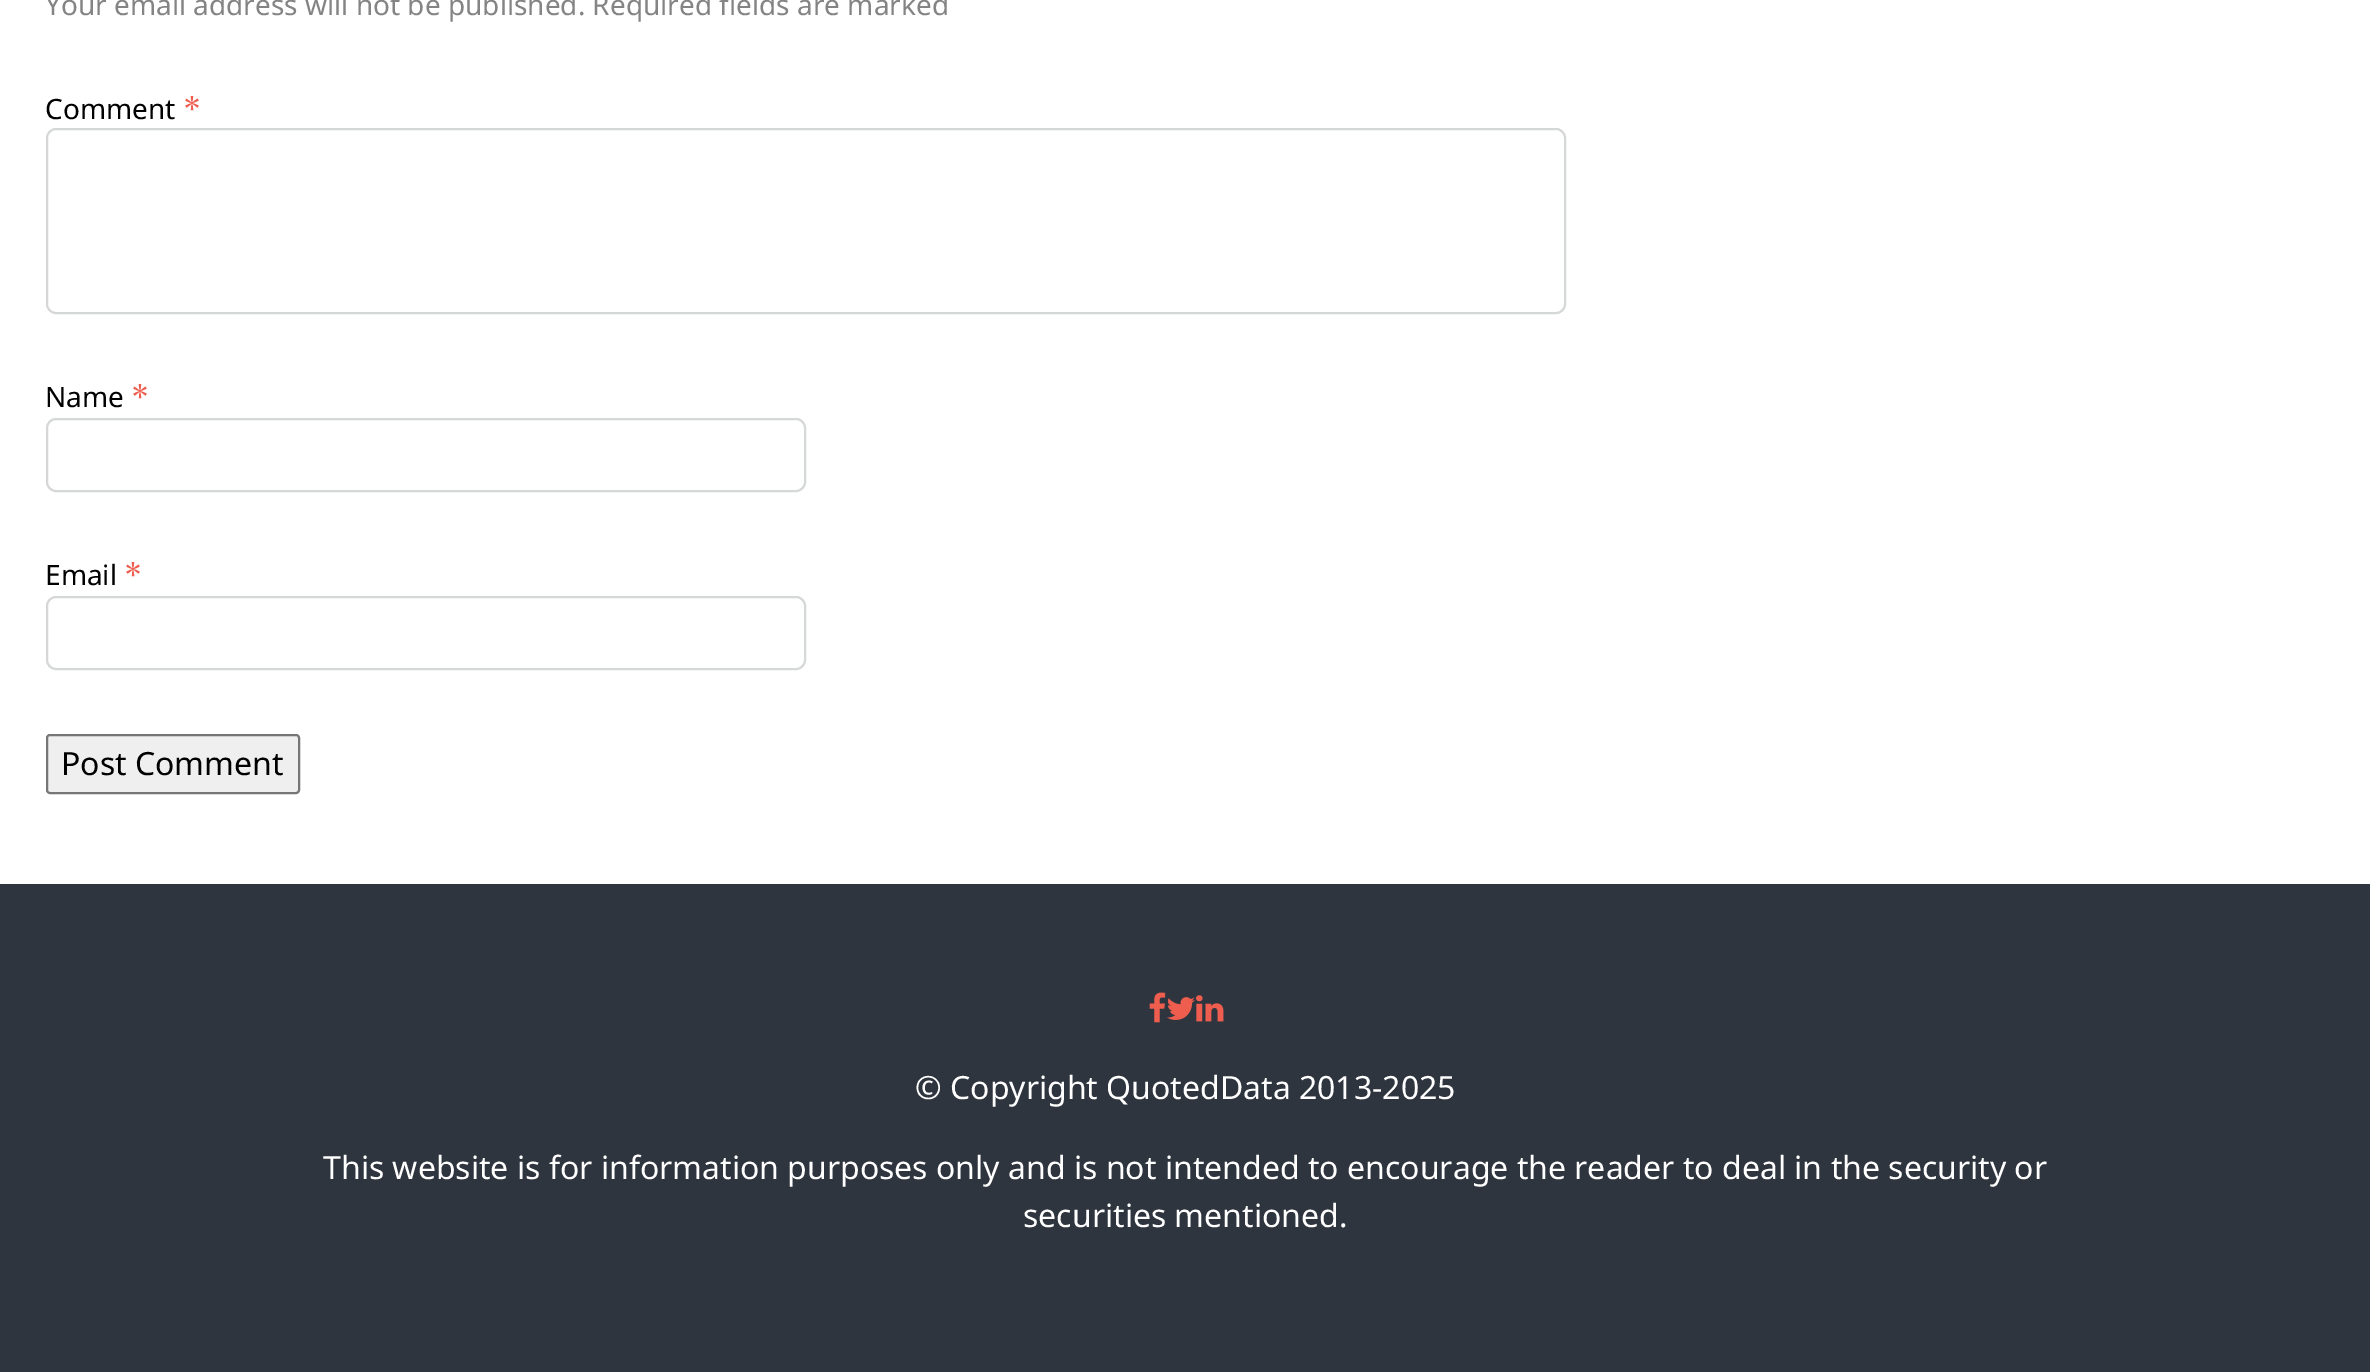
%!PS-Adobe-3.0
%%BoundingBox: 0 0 2370 1372
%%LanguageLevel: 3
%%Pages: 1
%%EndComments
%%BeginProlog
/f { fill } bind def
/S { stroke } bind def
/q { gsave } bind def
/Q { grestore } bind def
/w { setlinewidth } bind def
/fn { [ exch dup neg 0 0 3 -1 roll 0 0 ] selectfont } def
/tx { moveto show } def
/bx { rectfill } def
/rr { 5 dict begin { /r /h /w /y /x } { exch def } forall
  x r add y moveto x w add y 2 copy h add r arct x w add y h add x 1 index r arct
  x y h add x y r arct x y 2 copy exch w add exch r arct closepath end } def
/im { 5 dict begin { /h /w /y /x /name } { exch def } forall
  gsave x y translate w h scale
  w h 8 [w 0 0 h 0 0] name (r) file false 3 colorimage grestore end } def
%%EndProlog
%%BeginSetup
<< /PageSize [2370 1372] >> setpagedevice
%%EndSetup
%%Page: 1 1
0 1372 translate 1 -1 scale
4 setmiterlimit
1 setgray
0 0 2370 1372 bx
/NotoSans-Regular 28 fn
0.518 setgray
(Your email address will not be published. Required fields are marked) 45 15 tx
0 setgray
(Comment) 45 119 tx
/Merriweather-Regular 28 fn
0.933 0.365 0.306 setrgbcolor
(*) 183 119 tx
0.835 0.843 0.847 setrgbcolor
2 w
47 129 1518 184 9 rr S
/NotoSans-Regular 28 fn
0 setgray
(Name) 45 407 tx
/Merriweather-Regular 28 fn
0.933 0.365 0.306 setrgbcolor
(*) 131 407 tx
0.835 0.843 0.847 setrgbcolor
47 419 758 72 9 rr S
/NotoSans-Regular 28 fn
0 setgray
(Email) 45 585 tx
/Merriweather-Regular 28 fn
0.933 0.365 0.306 setrgbcolor
(*) 124 585 tx
0.835 0.843 0.847 setrgbcolor
47 597 758 72 9 rr S
0.937 setgray
47 735 252 58 3 rr q f Q
0.463 setgray
S
/NotoSans-Regular 32 fn
0 setgray
(Post Comment) 61 775 tx
0.184 0.208 0.243 setrgbcolor
0 884 2370 488 bx
(image0.raw) 1149 992 17 31 im
(image1.raw) 1167 997 28 23 im
(image2.raw) 1196 995 28 27 im
1 setgray
(© Copyright QuotedData 2013-2025) 915 1099 tx
(This website is for information purposes only and is not intended to encourage the reader to deal in the security or) 323 1179 tx
(securities mentioned.) 1023 1227 tx
showpage
%%EOF
